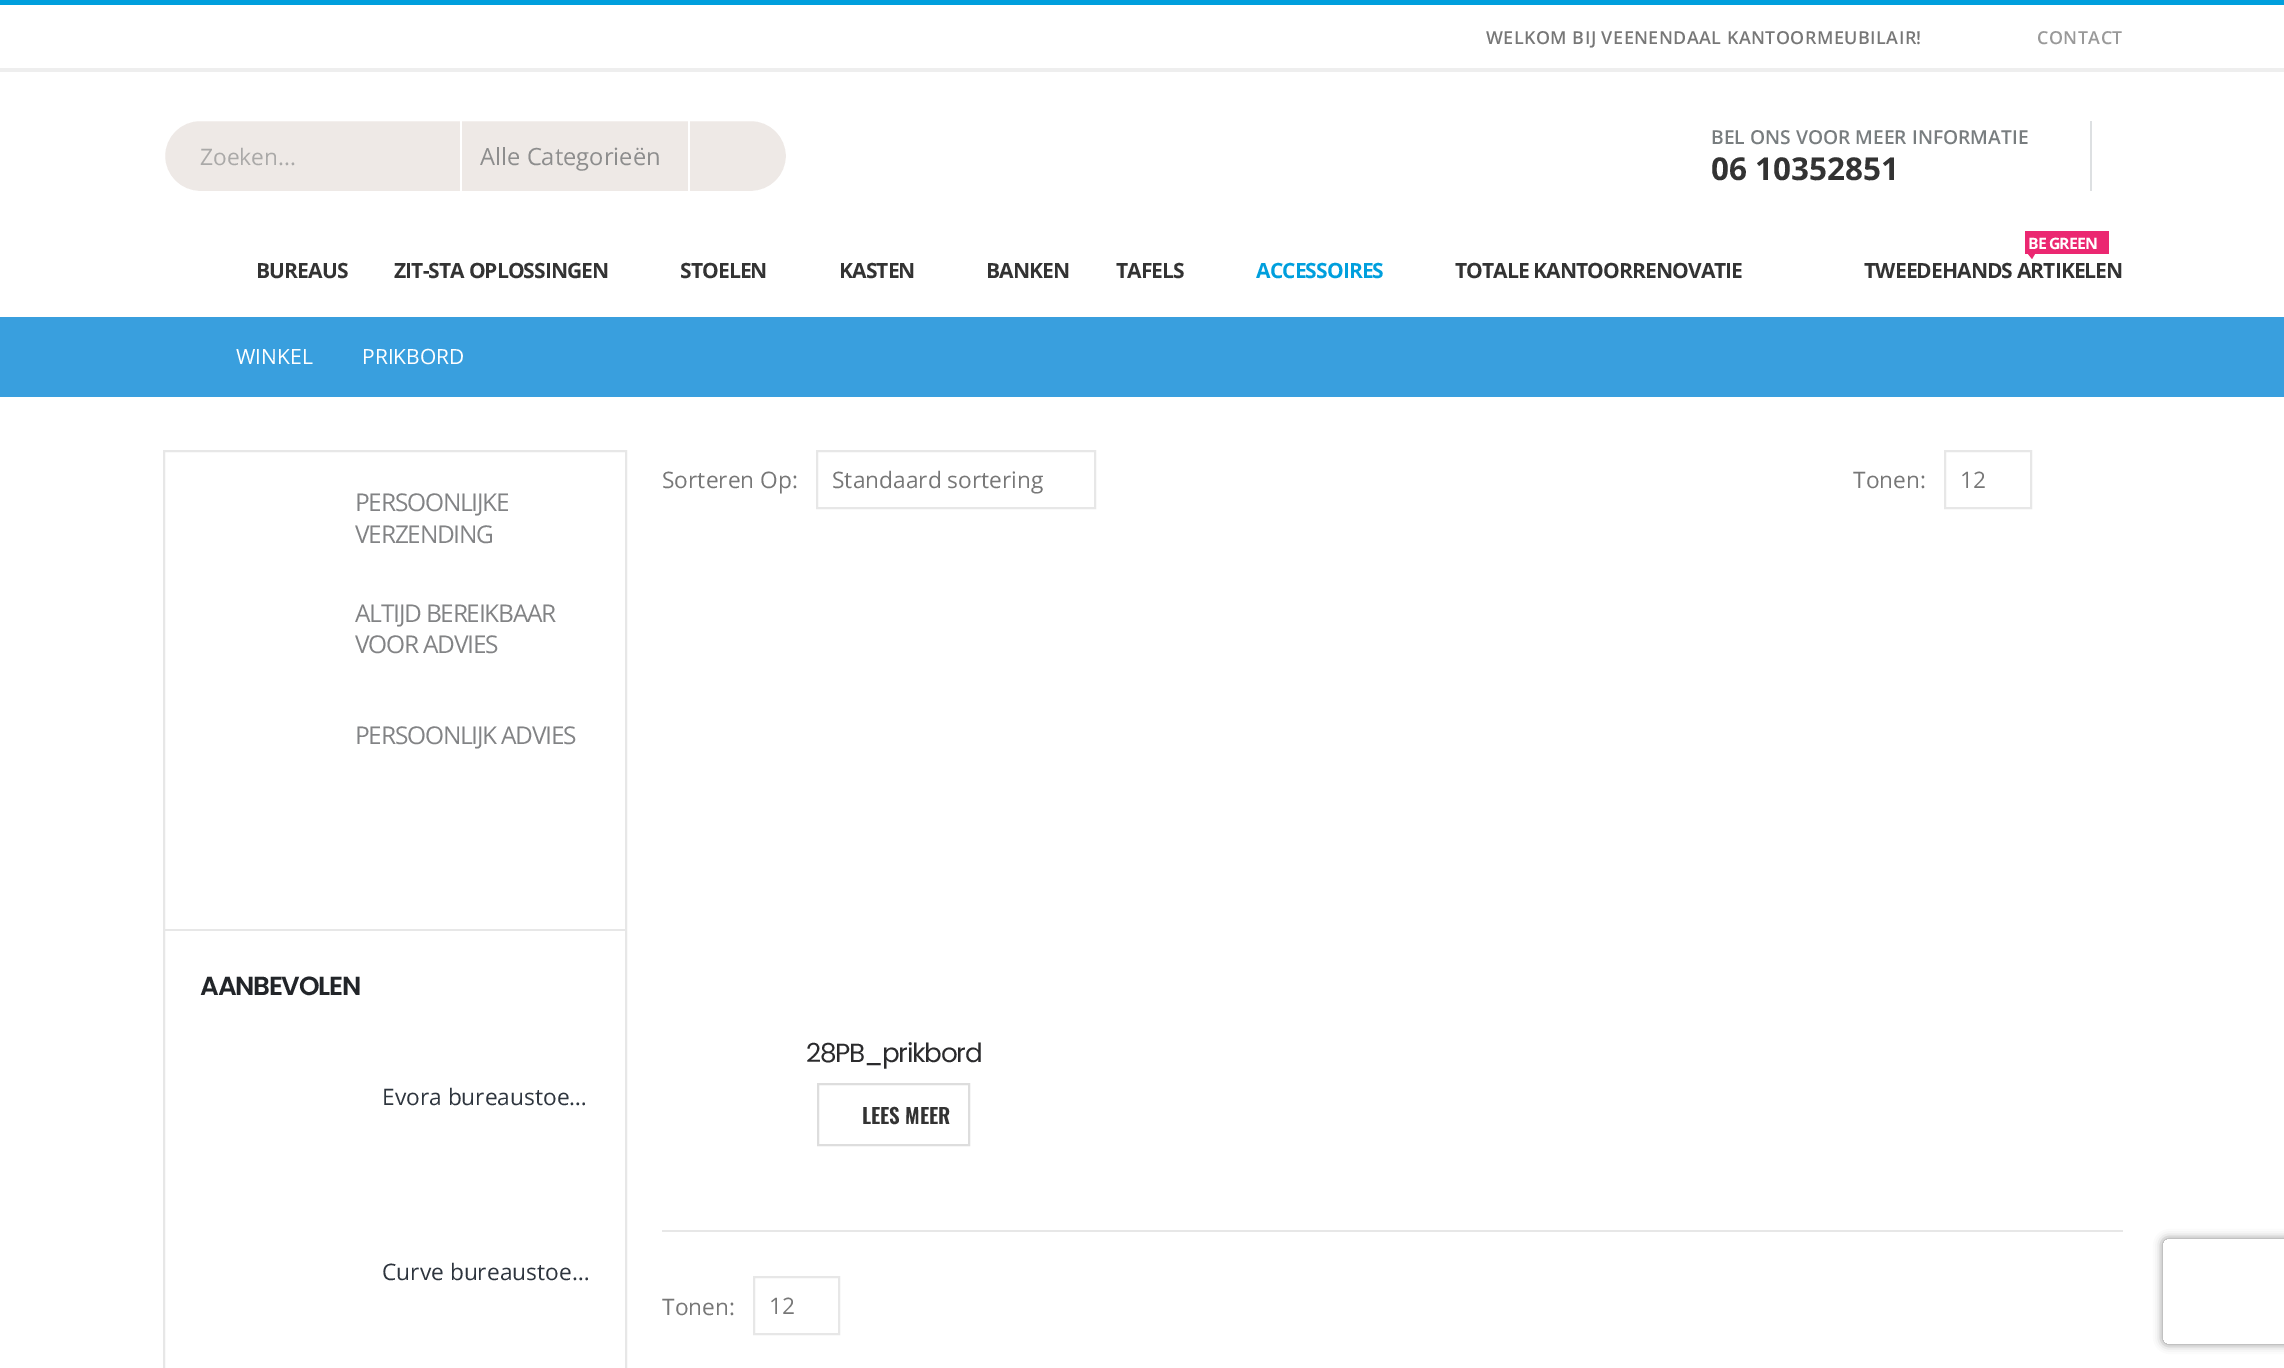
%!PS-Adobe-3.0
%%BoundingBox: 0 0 2284 1368
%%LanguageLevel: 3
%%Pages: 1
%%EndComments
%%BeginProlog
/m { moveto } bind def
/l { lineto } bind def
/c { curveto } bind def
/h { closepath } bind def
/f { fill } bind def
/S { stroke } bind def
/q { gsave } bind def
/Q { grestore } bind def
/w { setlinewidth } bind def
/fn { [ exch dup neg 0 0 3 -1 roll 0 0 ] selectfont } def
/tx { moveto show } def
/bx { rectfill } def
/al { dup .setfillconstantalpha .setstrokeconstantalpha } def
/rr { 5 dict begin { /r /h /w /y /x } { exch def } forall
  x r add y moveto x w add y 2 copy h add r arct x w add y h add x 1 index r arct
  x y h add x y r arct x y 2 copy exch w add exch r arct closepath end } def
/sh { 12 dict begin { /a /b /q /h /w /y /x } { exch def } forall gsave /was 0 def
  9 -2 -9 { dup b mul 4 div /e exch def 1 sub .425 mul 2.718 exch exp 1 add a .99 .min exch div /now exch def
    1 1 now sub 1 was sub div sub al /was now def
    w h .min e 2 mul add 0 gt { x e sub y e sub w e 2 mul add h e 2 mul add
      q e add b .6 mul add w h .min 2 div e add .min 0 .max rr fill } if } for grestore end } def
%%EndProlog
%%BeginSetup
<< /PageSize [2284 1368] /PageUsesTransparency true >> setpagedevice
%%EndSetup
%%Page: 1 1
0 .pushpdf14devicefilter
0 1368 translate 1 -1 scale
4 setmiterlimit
1 setgray
0 0 2284 1368 bx
0 0.624 0.867 setrgbcolor
0 0 2284 5 bx
0.933 setgray
0 68 2284 4 bx
/OpenSans-SemiBold 17.9 fn
0.467 setgray
1486 44 m 0.45 0 (WELKOM BIJ VEENENDAAL KANTOORMEUBILAIR!) ashow
0.6 setgray
2037 44 m 0.45 0 (CONTACT) ashow
0.933 0.914 0.902 setrgbcolor
164 120 623 72 36 rr q f Q
1 setgray
2 w
S
460 121 2 70 bx
/OpenSans-Regular 22.75 fn
0.667 0.663 0.659 setrgbcolor
(Zoeken...) 200 165 tx
1 setgray
688 121 2 70 bx
/OpenSans-Regular 23.75 fn
0.553 setgray
(Alle Categorieën) 480 165 tx
0.867 0.878 0.886 setrgbcolor
2090 121 2 70 bx
/OpenSans-SemiBold 19.25 fn
0.471 0.49 0.498 setrgbcolor
(BEL ONS VOOR MEER INFORMATIE) 1711 144 tx
/OpenSans-Bold 31.5 fn
0.2 setgray
(06 10352851) 1711 180 tx
/OpenSans-Bold 21 fn
256 278 m -0.9 0 (BUREAUS) ashow
394 278 m -0.9 0 (ZIT-STA OPLOSSINGEN) ashow
680 278 m -0.9 0 (STOELEN) ashow
839 278 m -0.9 0 (KASTEN) ashow
986 278 m -0.9 0 (BANKEN) ashow
1116 278 m -0.9 0 (TAFELS) ashow
0 0.624 0.867 setrgbcolor
1256 278 m -0.9 0 (ACCESSOIRES) ashow
0.2 setgray
1455 278 m -0.9 0 (TOTALE KANTOORRENOVATIE) ashow
0.922 0.153 0.443 setrgbcolor
2025 231 84 23 bx
/OpenSans-Bold 15.75 fn
1 setgray
2028 249 m -0.9 0 (BE GREEN) ashow
0.922 0.153 0.443 setrgbcolor
2028 254 m 2035 254 l 2032 259 l h f
/OpenSans-Bold 21 fn
0.2 setgray
1864 278 m -0.9 0 (TWEEDEHANDS ARTIKELEN) ashow
0.224 0.624 0.871 setrgbcolor
0 317 2284 80 bx
/OpenSans-Regular 21 fn
1 setgray
(WINKEL) 236 364 tx
(PRIKBORD) 362 364 tx
0.906 setgray
164 451 462 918 rectstroke
165 929 460 2 bx
/OpenSans-Regular 24.5 fn
0.51 0.514 0.522 setrgbcolor
355 511 m -1.25 0 (PERSOONLIJKE) ashow
355 543 m -1.25 0 (VERZENDING) ashow
355 622 m -1.25 0 (ALTIJD BEREIKBAAR) ashow
355 653 m -1.25 0 (VOOR ADVIES) ashow
355 744 m -1.25 0 (PERSOONLIJK ADVIES) ashow
/Poppins-SemiBold 26.25 fn
0.133 0.145 0.161 setrgbcolor
200 995 m -1.25 0 (AANBEVOLEN) ashow
/OpenSans-Regular 22.75 fn
0.18 0.208 0.243 setrgbcolor
(Evora bureaustoe…) 382 1105 tx
(Curve bureaustoe…) 382 1280 tx
0.467 setgray
(Sorteren Op:) 662 488 tx
0.906 setgray
817 451 278 57 rectstroke
0.467 setgray
(Standaard sortering) 832 488 tx
(Tonen:) 1853 488 tx
0.906 setgray
1945 451 86 57 rectstroke
0.467 setgray
(12) 1960 488 tx
/Poppins-Regular 26.25 fn
0.169 0.169 0.176 setrgbcolor
806 1062 m -1.25 0 (28PB_prikbord) ashow
0.867 setgray
818 1084 151 61 rectstroke
/Oswald-SemiBold 21 fn
0.2 setgray
(LEES MEER) 862 1124 tx
0.906 setgray
662 1230 1461 2 bx
/OpenSans-Regular 22.75 fn
0.467 setgray
(Tonen:) 662 1315 tx
0.906 setgray
754 1277 85 57 rectstroke
0.467 setgray
(12) 769 1314 tx
q
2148 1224 m 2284 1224 l 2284 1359 l 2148 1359 l h 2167 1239 m 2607 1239 l 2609 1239 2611 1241 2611 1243 c 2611 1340 l 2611 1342 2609 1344 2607 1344 c 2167 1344 l 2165 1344 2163 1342 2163 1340 c 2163 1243 l 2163 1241 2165 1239 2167 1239 c h eoclip newpath
0.502 setgray
2163 1239 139 105 4 4.5 1 sh
Q
.poppdf14devicefilter showpage
%%EOF
